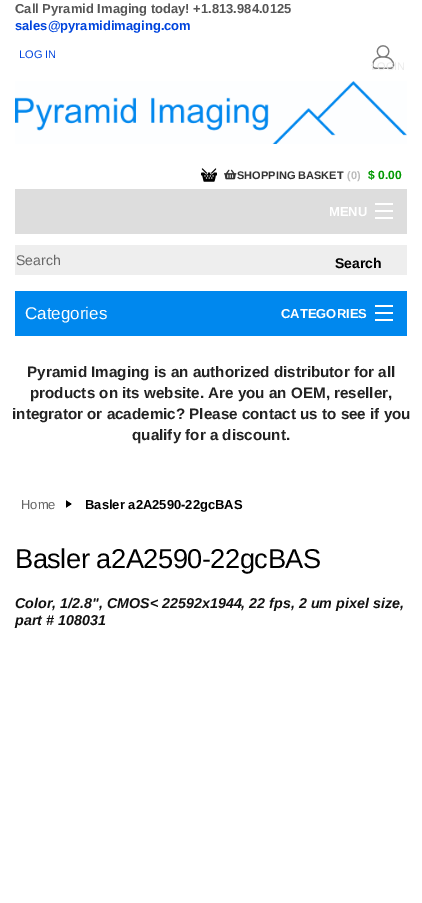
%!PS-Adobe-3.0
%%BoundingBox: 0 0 422 903
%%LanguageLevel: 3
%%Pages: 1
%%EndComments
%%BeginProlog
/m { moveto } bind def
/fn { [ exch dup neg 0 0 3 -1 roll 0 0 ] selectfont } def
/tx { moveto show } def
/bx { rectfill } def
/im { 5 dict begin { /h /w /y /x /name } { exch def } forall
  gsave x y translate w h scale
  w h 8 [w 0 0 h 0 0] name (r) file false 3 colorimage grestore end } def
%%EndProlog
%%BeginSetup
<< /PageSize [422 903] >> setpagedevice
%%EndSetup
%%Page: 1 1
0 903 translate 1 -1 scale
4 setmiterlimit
1 setgray
0 0 422 903 bx
/LiberationSans-Bold 13 fn
0.333 setgray
(Call Pyramid Imaging today! +1.813.984.0125) 15 13 tx
0 0.267 0.867 setrgbcolor
(sales@pyramidimaging.com) 15 30 tx
/LiberationSans-Regular 11 fn
(LOG IN) 19 58 tx
(image0.raw) 371 45 24 24 im
0.922 setgray
(LOGIN) 371 70 tx
(image1.raw) 15 81 392 63 im
(image2.raw) 201 168 16 14 im
(image3.raw) 224 169 13 11 im
/LiberationSans-Bold 11 fn
0.2 setgray
(SHOPPING BASKET) 237 179 tx
0.733 setgray
(\(0\)) 347 179 tx
/LiberationSans-Bold 12 fn
0 0.6 0 setrgbcolor
($ 0.00) 368 179 tx
0.867 setgray
15 189 392 45 bx
/LiberationSans-Bold 13 fn
1 setgray
(MENU) 329 216 tx
375 217 18 2 bx
375 210 18 2 bx
375 203 18 2 bx
0.933 setgray
15 245 392 30 bx
/LiberationSans-Regular 14 fn
0.4 setgray
(Search) 16 265 tx
/LiberationSans-Bold 14 fn
0 setgray
(Search) 335 268 tx
0 0.533 0.933 setrgbcolor
15 291 392 45 bx
/LiberationSans-Regular 17 fn
1 setgray
(Categories) 25 319 tx
/LiberationSans-Bold 13 fn
(CATEGORIES) 281 318 tx
375 319 18 2 bx
375 312 18 2 bx
375 305 18 2 bx
/LiberationSans-Bold 15.2 fn
0.133 setgray
(Pyramid Imaging is an authorized distributor for all) 27 377 tx
(products on its website. Are you an OEM, reseller,) 30 398 tx
(integrator or academic? Please contact us to see if you) 12 419 tx
(qualify for a discount.) 132 440 tx
(image4.raw) 66 500 6 8 im
/LiberationSans-Regular 13 fn
0.4 setgray
(Home) 21 509 tx
/LiberationSans-Bold 13 fn
0 setgray
(Basler a2A2590-22gcBAS) 85 509 tx
/LiberationSans-Regular 27.25 fn
15 568 m -0.5 0 (Basler a2A2590-22gcBAS) ashow
/LiberationSans-BoldItalic 14.3 fn
0.067 setgray
(Color, 1/2.8", CMOS< 22592x1944, 22 fps, 2 um pixel size,) 15 608 tx
(part # 108031) 15 625 tx
showpage
%%EOF
